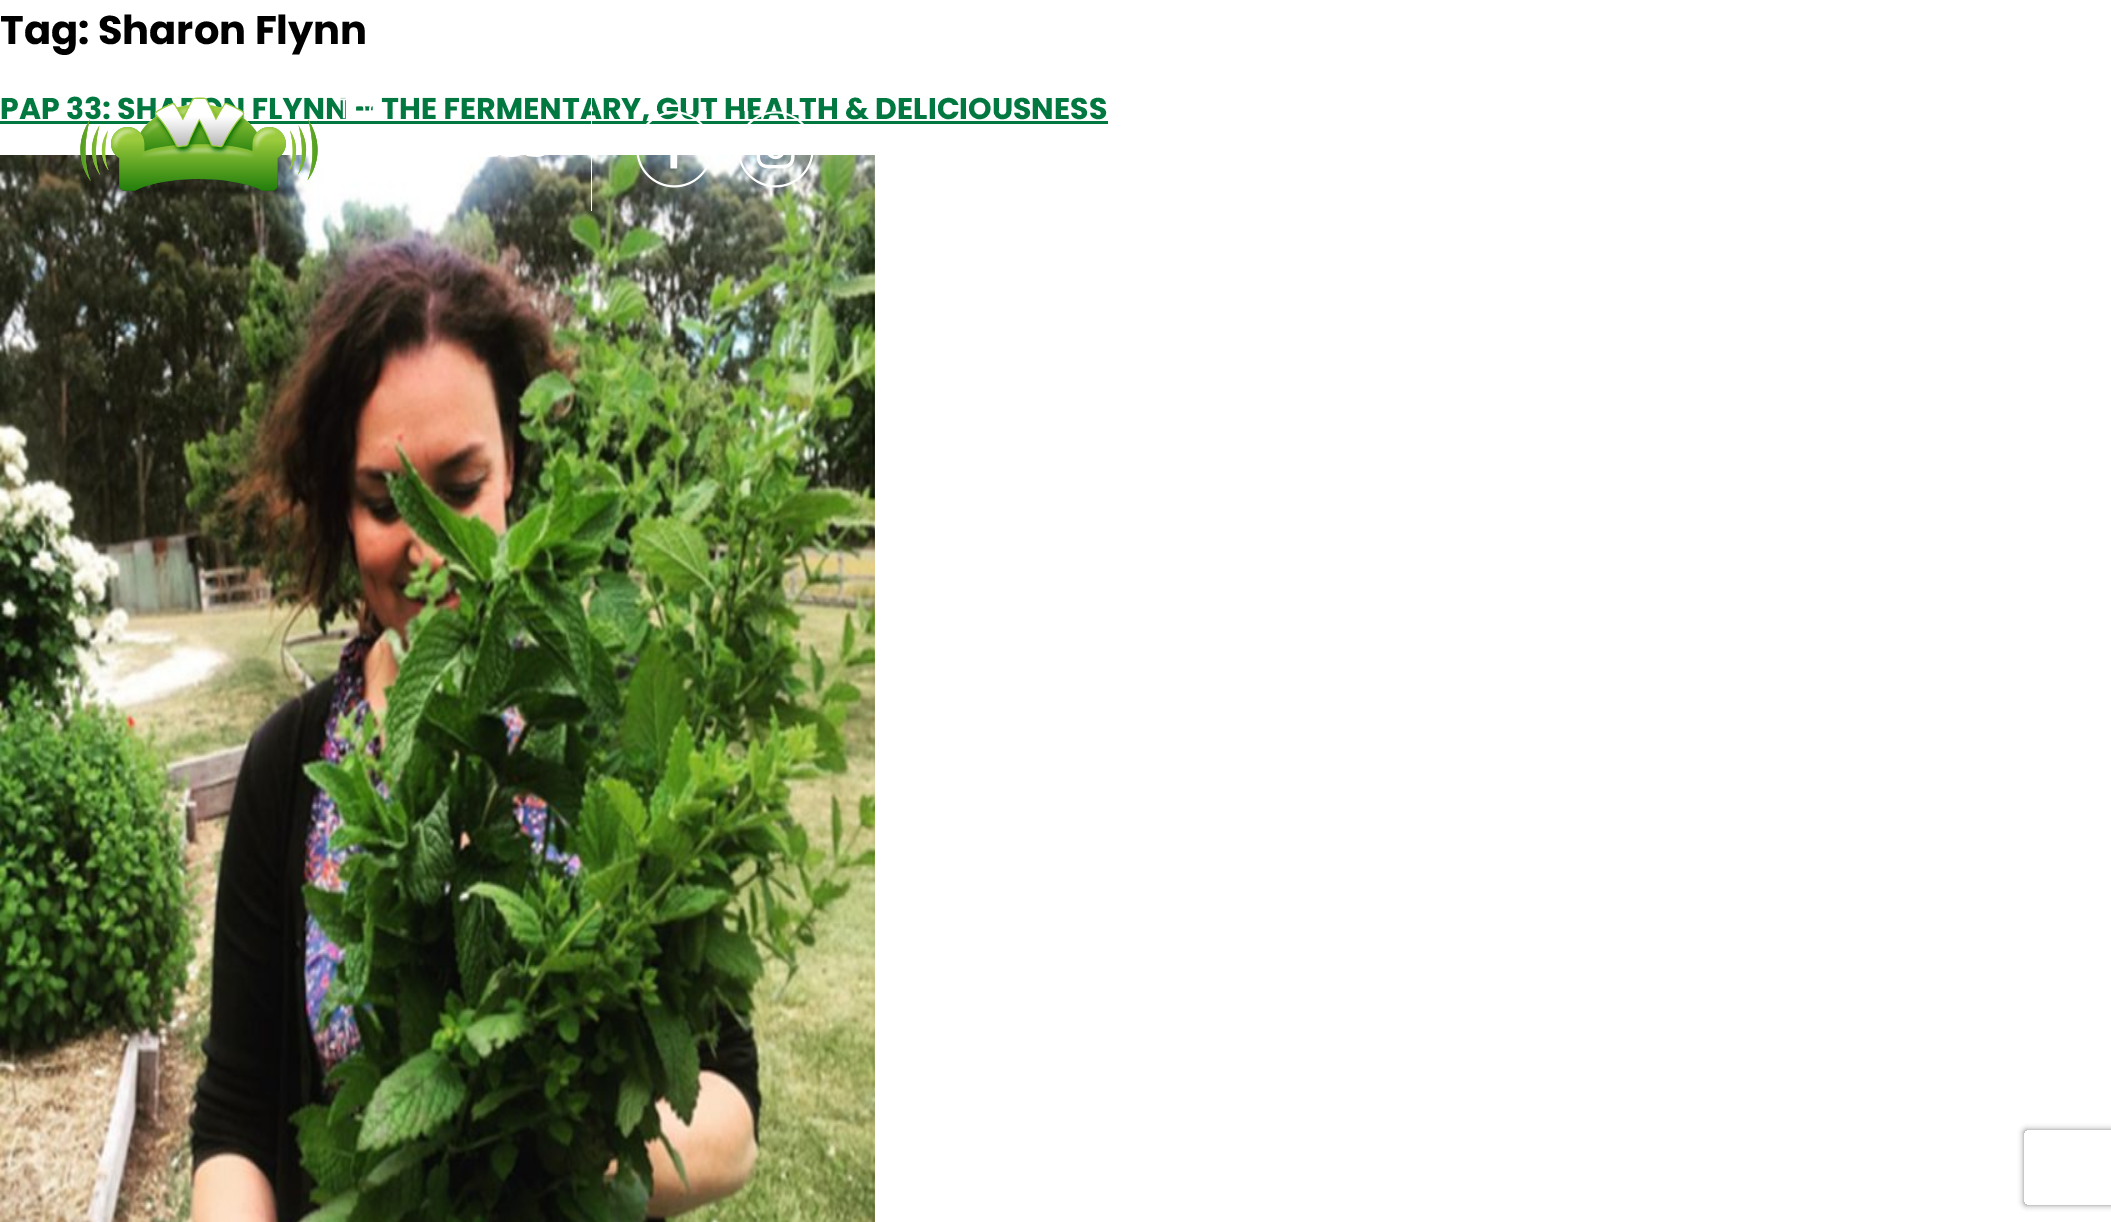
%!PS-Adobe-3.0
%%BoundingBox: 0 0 2111 1222
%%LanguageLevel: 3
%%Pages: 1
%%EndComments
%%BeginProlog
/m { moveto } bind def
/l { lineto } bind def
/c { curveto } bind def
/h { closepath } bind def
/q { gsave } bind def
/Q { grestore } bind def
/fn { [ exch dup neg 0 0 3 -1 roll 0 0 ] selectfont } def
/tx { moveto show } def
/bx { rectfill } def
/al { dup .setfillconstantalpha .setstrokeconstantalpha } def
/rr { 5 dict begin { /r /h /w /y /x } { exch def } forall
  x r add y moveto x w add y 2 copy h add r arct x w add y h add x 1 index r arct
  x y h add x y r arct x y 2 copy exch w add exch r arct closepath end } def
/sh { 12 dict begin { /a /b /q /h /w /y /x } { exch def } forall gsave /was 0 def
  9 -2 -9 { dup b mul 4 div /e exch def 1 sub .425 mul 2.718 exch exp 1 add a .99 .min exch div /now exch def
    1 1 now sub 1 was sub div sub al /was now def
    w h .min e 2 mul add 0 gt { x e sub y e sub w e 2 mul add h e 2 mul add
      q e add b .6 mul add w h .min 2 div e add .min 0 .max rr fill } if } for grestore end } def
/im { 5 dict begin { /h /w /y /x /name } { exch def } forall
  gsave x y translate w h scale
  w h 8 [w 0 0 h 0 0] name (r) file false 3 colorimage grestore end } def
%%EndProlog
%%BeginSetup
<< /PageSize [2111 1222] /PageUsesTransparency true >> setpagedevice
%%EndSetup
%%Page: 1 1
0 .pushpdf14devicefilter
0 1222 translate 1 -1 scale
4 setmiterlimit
1 setgray
0 0 2111 1222 bx
/Poppins-Bold 40 fn
0 setgray
(Tag: Sharon Flynn) 0 44 tx
0 0.471 0.247 setrgbcolor
0 121 1108 3 bx
/Poppins-Bold 30 fn
(PAP 33: SHARON FLYNN – THE FERMENTARY, GUT HEALTH & DELICIOUSNESS) 0 119 tx
(image0.raw) 0 155 875 1067 im
1 setgray
591 97 1 114 bx
(image1.raw) 80 97 465 99 im
(image2.raw) 636 111 72 77 im
(image3.raw) 738 111 76 77 im
q
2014 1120 m 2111 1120 l 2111 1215 l 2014 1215 l h 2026.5 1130 m 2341.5 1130 l 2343 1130 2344 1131 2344 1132.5 c 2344 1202.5 l 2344 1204 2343 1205 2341.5 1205 c 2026.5 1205 l 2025 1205 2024 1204 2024 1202.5 c 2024 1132.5 l 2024 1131 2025 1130 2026.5 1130 c h eoclip newpath
0.502 setgray
2024 1130 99 75 2.5 3 1 sh
Q
.poppdf14devicefilter showpage
%%EOF
